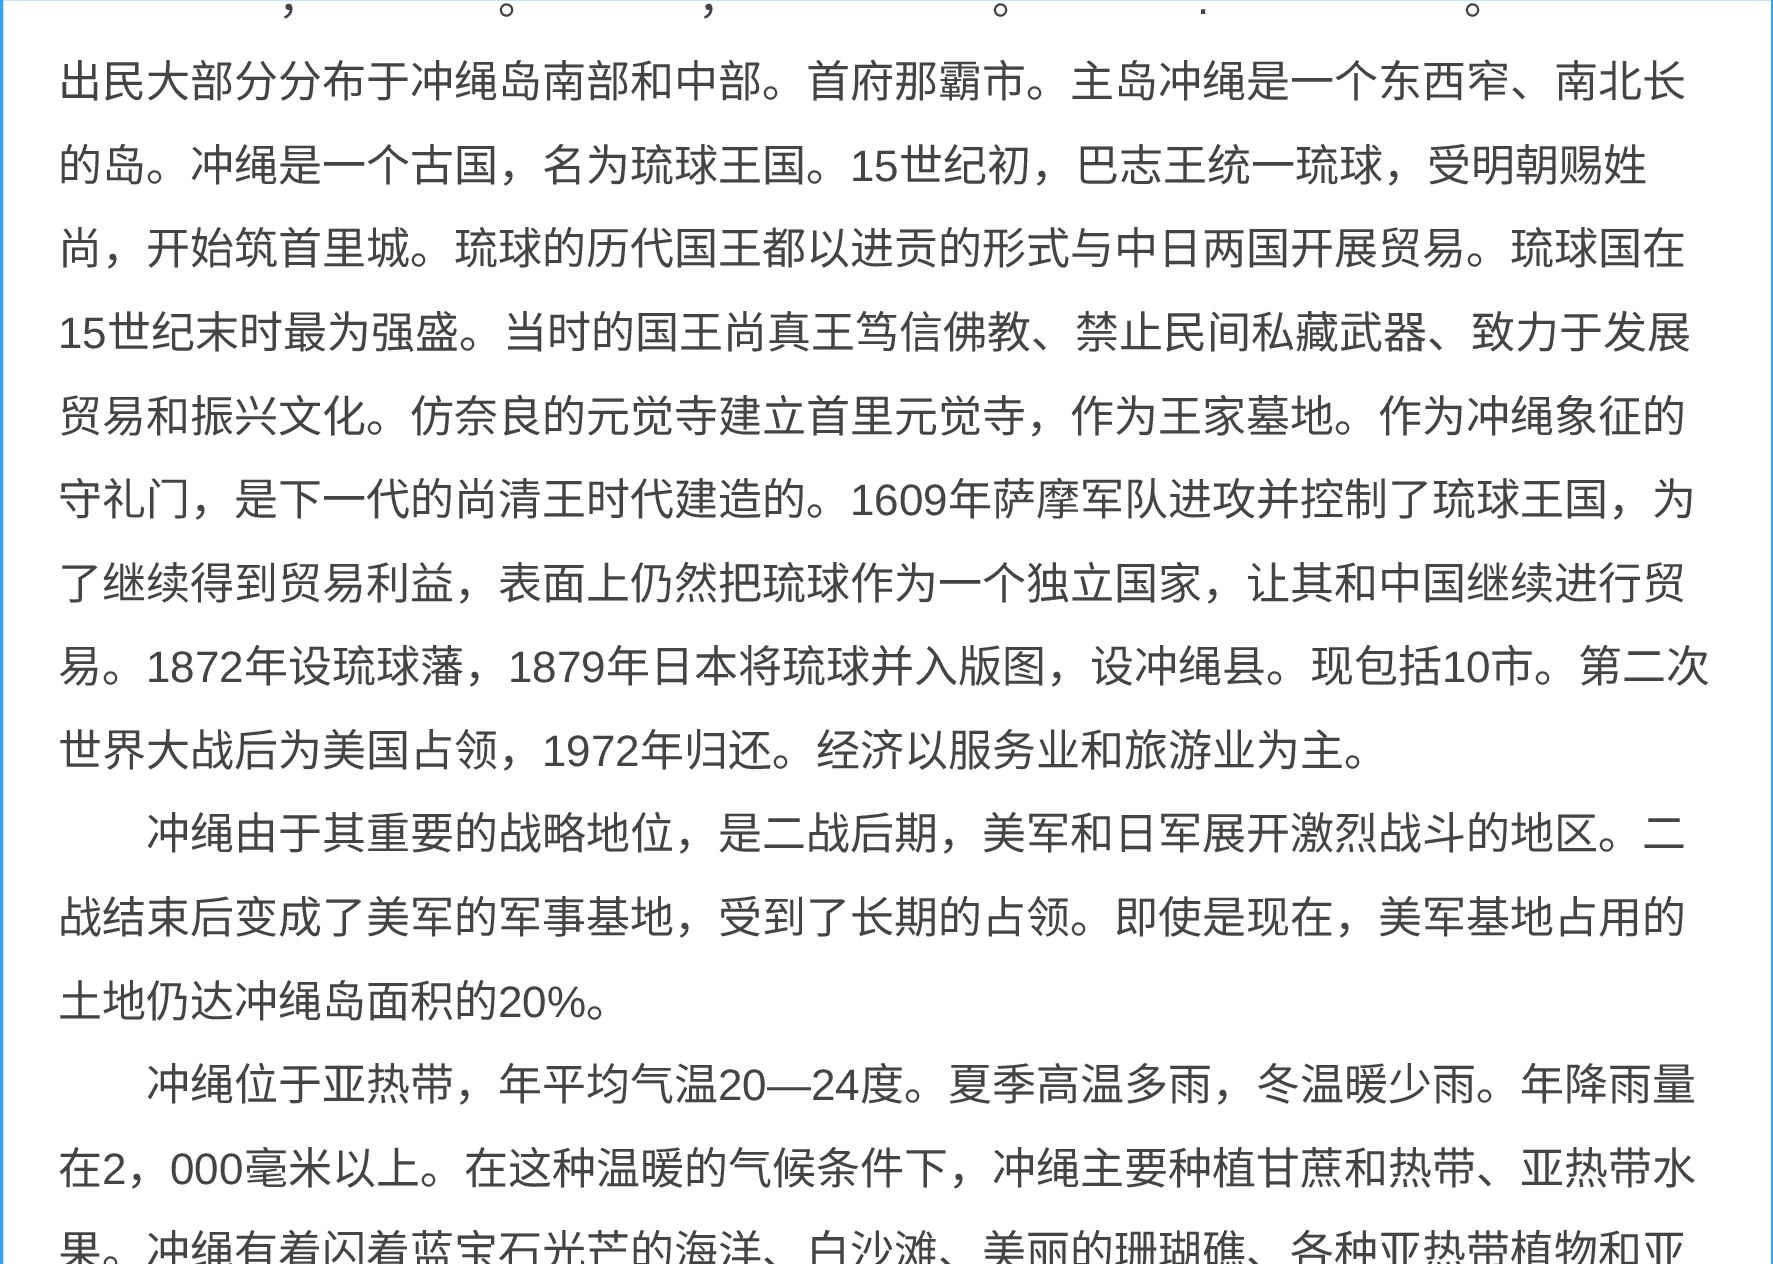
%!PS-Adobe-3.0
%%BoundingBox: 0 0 1773 1264
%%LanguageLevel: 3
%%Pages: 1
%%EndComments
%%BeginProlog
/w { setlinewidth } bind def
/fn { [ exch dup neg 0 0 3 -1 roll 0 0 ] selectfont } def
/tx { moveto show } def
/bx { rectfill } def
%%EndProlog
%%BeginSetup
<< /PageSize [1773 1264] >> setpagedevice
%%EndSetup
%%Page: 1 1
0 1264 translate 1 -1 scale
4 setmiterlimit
1 setgray
0 0 1773 1264 bx
0.2 0.639 0.953 setrgbcolor
3 w
1.5 -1.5 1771 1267 rectstroke
/NotoSansCJKSC-Regular 44 fn
0.267 setgray
(，) 278 14 tx
(。) 498 14 tx
(，) 698 14 tx
(。) 992 14 tx
/LiberationSans-Regular 44 fn
(.) 1197 14 tx
/NotoSansCJKSC-Regular 44 fn
(。) 1464 14 tx
(出民大部分分布于冲绳岛南部和中部。首府那霸市。主岛冲绳是一个东西窄、南北长) 58 97 tx
(的岛。冲绳是一个古国，名为琉球王国。) 58 181 tx
/LiberationSans-Regular 44 fn
(15) 850 181 tx
/NotoSansCJKSC-Regular 44 fn
(世纪初，巴志王统一琉球，受明朝赐姓) 899 181 tx
(尚，开始筑首里城。琉球的历代国王都以进贡的形式与中日两国开展贸易。琉球国在) 58 264 tx
/LiberationSans-Regular 44 fn
(15) 58 348 tx
/NotoSansCJKSC-Regular 44 fn
(世纪末时最为强盛。当时的国王尚真王笃信佛教、禁止民间私藏武器、致力于发展) 107 348 tx
(贸易和振兴文化。仿奈良的元觉寺建立首里元觉寺，作为王家墓地。作为冲绳象征的) 58 432 tx
(守礼门，是下一代的尚清王时代建造的。) 58 515 tx
/LiberationSans-Regular 44 fn
(1609) 850 515 tx
/NotoSansCJKSC-Regular 44 fn
(年萨摩军队进攻并控制了琉球王国，为) 948 515 tx
(了继续得到贸易利益，表面上仍然把琉球作为一个独立国家，让其和中国继续进行贸) 58 599 tx
(易。) 58 682 tx
/LiberationSans-Regular 44 fn
(1872) 146 682 tx
/NotoSansCJKSC-Regular 44 fn
(年设琉球藩，) 244 682 tx
/LiberationSans-Regular 44 fn
(1879) 508 682 tx
/NotoSansCJKSC-Regular 44 fn
(年日本将琉球并入版图，设冲绳县。现包括) 606 682 tx
/LiberationSans-Regular 44 fn
(10) 1442 682 tx
/NotoSansCJKSC-Regular 44 fn
(市。第二次) 1490 682 tx
(世界大战后为美国占领，) 58 766 tx
/LiberationSans-Regular 44 fn
(1972) 542 766 tx
/NotoSansCJKSC-Regular 44 fn
(年归还。经济以服务业和旅游业为主。) 640 766 tx
(冲绳由于其重要的战略地位，是二战后期，美军和日军展开激烈战斗的地区。二) 146 849 tx
(战结束后变成了美军的军事基地，受到了长期的占领。即使是现在，美军基地占用的) 58 933 tx
(土地仍达冲绳岛面积的) 58 1017 tx
/LiberationSans-Regular 44 fn
(20%) 498 1017 tx
/NotoSansCJKSC-Regular 44 fn
(。) 586 1017 tx
(冲绳位于亚热带，年平均气温) 146 1100 tx
/LiberationSans-Regular 44 fn
(20—24) 718 1100 tx
/NotoSansCJKSC-Regular 44 fn
(度。夏季高温多雨，冬温暖少雨。年降雨量) 860 1100 tx
(在) 58 1184 tx
/LiberationSans-Regular 44 fn
(2) 102 1184 tx
/NotoSansCJKSC-Regular 44 fn
(，) 126 1184 tx
/LiberationSans-Regular 44 fn
(000) 170 1184 tx
/NotoSansCJKSC-Regular 44 fn
(毫米以上。在这种温暖的气候条件下，冲绳主要种植甘蔗和热带、亚热带水) 244 1184 tx
(果。冲绳有着闪着蓝宝石光芒的海洋、白沙滩、美丽的珊瑚礁、各种亚热带植物和亚) 58 1267 tx
showpage
%%EOF
